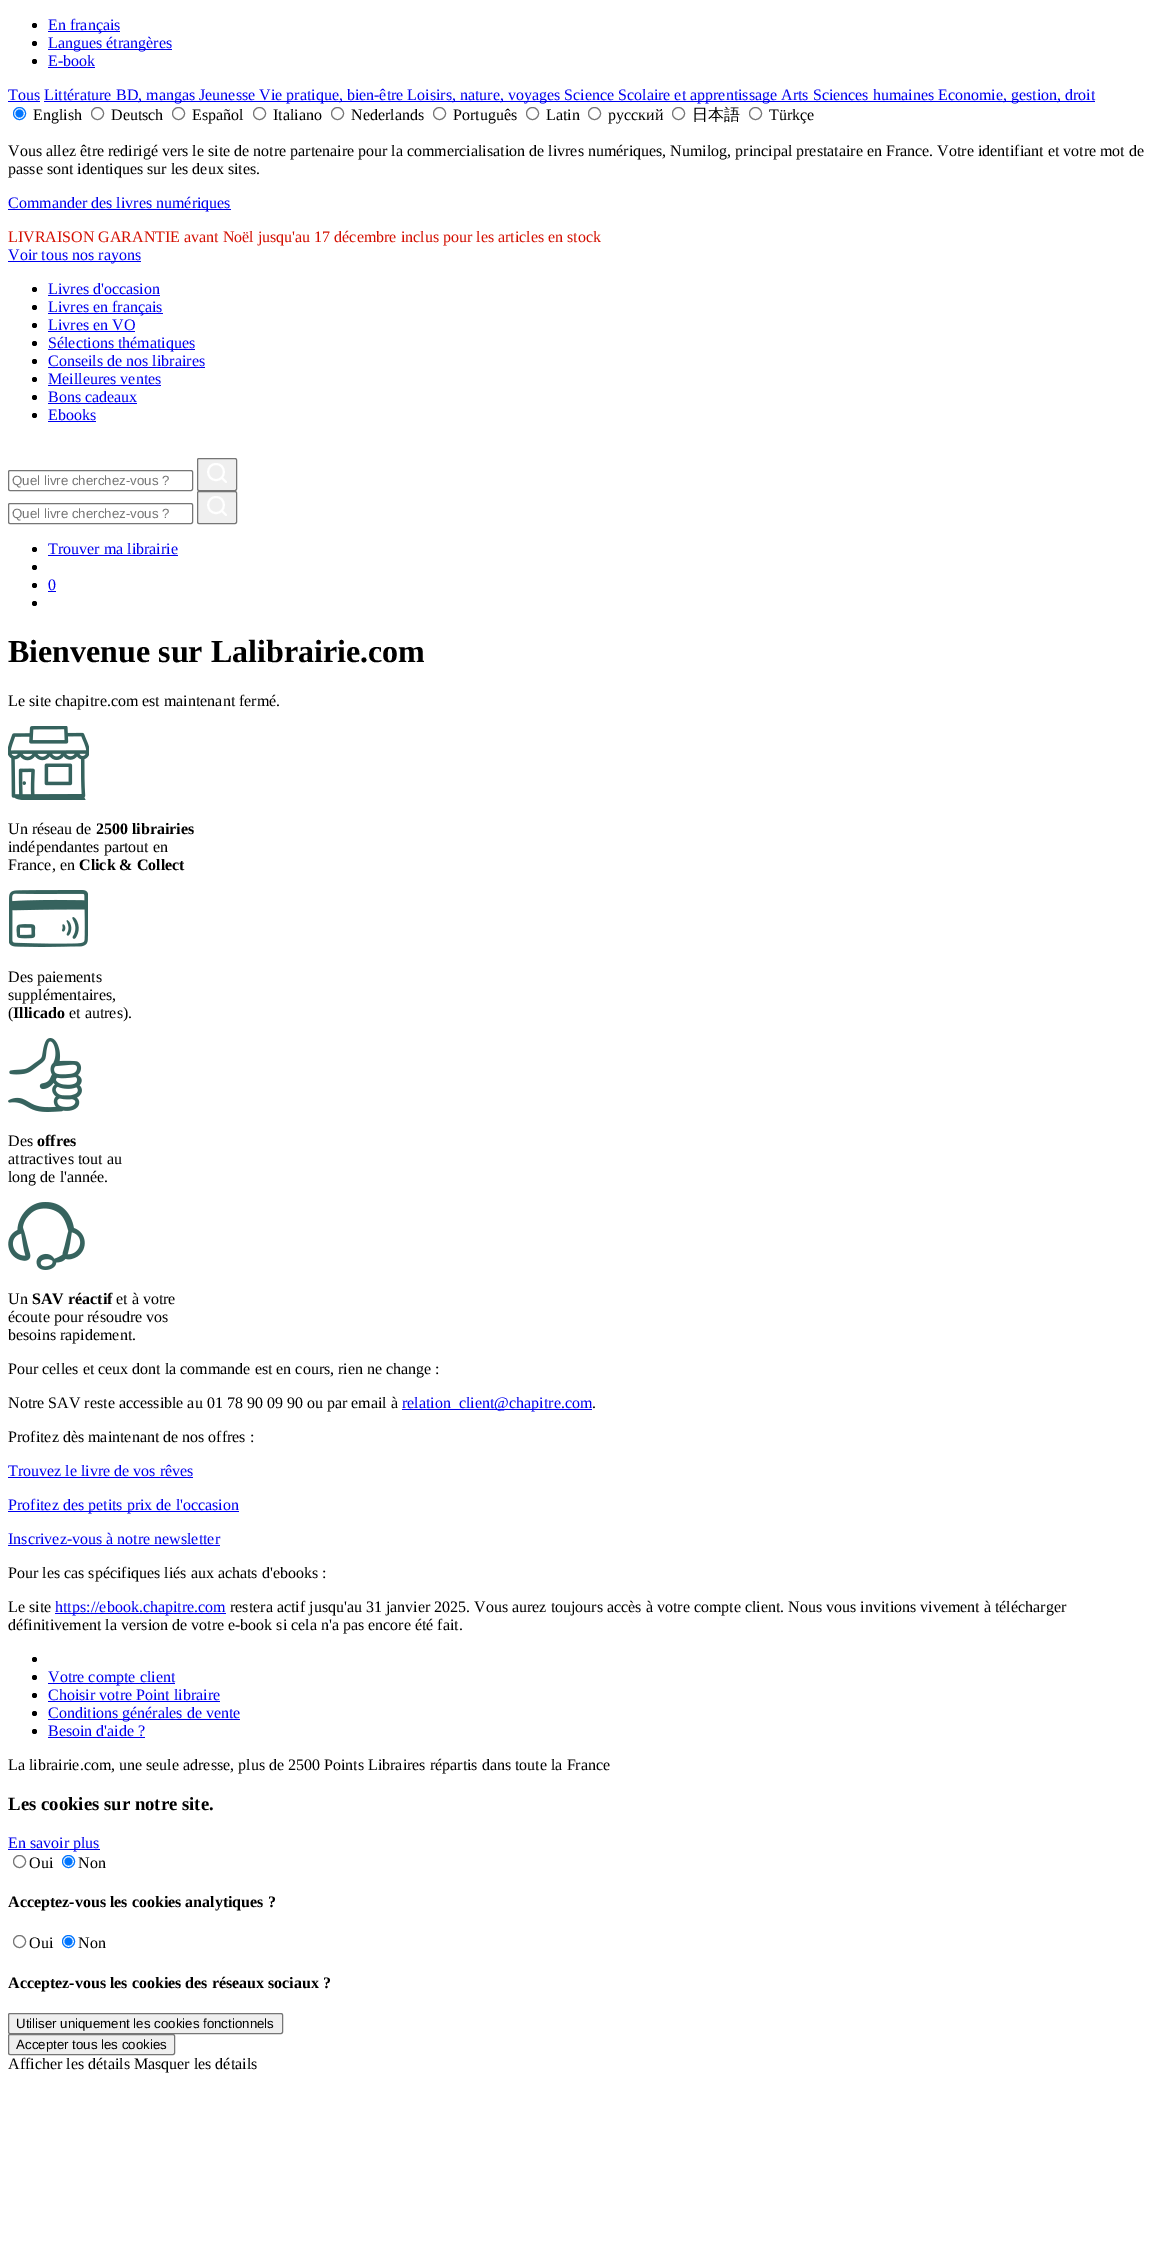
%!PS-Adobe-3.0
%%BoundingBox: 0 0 1167 2267
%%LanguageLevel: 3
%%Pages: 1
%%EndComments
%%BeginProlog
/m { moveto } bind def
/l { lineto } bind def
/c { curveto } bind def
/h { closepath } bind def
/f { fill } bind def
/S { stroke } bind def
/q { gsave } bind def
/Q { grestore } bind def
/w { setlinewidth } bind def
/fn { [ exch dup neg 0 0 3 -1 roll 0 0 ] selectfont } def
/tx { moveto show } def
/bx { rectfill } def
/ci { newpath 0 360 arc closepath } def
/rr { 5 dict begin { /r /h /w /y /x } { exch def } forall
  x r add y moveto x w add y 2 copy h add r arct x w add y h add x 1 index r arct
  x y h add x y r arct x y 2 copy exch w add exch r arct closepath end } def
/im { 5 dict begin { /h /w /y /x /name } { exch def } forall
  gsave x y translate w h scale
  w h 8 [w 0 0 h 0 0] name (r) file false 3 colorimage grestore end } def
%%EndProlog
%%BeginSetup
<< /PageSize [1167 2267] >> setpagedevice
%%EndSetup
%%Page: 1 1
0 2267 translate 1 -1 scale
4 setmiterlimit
1 setgray
0 0 1167 2267 bx
0 setgray
34.5 25.5 2.5 ci f
0 0 0.933 setrgbcolor
48 31 72 1 bx
/LiberationSerif-Regular 16 fn
(En français) 48 30 tx
0 setgray
34.5 43.5 2.5 ci f
0 0 0.933 setrgbcolor
48 49 124 1 bx
(Langues étrangères) 48 48 tx
0 setgray
34.5 61.5 2.5 ci f
0 0 0.933 setrgbcolor
(E-book) 48 66 tx
48 67 47 1 bx
(Tous Littérature) 8 100 tx
8 101 32 1 bx
44 101 1051 1 bx
(BD, mangas Jeunesse Vie pratique, bien-être Loisirs, nature, voyages Science Scolaire et apprentissage Arts Sciences humaines Economie, gestion, droit) 116 100 tx
0 0.459 1 setrgbcolor
19.5 113.5 6 ci S
19.5 113.5 4 ci f
0 setgray
(English) 33 120 tx
0.463 setgray
97.5 113.5 6 ci S
0 setgray
(Deutsch) 111 120 tx
0.463 setgray
178.5 113.5 6 ci S
0 setgray
(Español) 192 120 tx
0.463 setgray
259.5 113.5 6 ci S
0 setgray
(Italiano) 273 120 tx
0.463 setgray
337.5 113.5 6 ci S
0 setgray
(Nederlands) 351 120 tx
0.463 setgray
439.5 113.5 6 ci S
0 setgray
(Português) 453 120 tx
0.463 setgray
532.5 113.5 6 ci S
0 setgray
(Latin) 546 120 tx
0.463 setgray
594.5 113.5 6 ci S
0 setgray
(русский) 608 120 tx
0.463 setgray
678.5 113.5 6 ci S
/WenQuanYiZenHei-Medium 16 fn
0 setgray
(日本語) 692 120 tx
0.463 setgray
755.5 113.5 6 ci S
/LiberationSerif-Regular 16 fn
0 setgray
(Türkçe) 769 120 tx
(Vous allez être redirigé vers le site de notre partenaire pour la commercialisation de livres numériques, Numilog, principal prestataire en France. Votre identifiant et votre mot de) 8 156 tx
(passe sont identiques sur les deux sites.) 8 174 tx
0 0 0.933 setrgbcolor
8 209 223 1 bx
(Commander des livres numériques) 8 208 tx
0.831 0.055 0 setrgbcolor
(LIVRAISON GARANTIE avant Noël jusqu'au 17 décembre inclus pour les articles en stock) 8 242 tx
0 0 0.933 setrgbcolor
8 261 133 1 bx
(Voir tous nos rayons) 8 260 tx
0 setgray
34.5 289.5 2.5 ci f
0 0 0.933 setrgbcolor
(Livres d'occasion) 48 294 tx
48 295 112 1 bx
0 setgray
34.5 307.5 2.5 ci f
0 0 0.933 setrgbcolor
48 313 115 1 bx
(Livres en français) 48 312 tx
0 setgray
34.5 325.5 2.5 ci f
0 0 0.933 setrgbcolor
(Livres en VO) 48 330 tx
48 331 87 1 bx
0 setgray
34.5 343.5 2.5 ci f
0 0 0.933 setrgbcolor
48 349 147 1 bx
(Sélections thématiques) 48 348 tx
0 setgray
34.5 361.5 2.5 ci f
0 0 0.933 setrgbcolor
(Conseils de nos libraires) 48 366 tx
48 367 157 1 bx
0 setgray
34.5 379.5 2.5 ci f
0 0 0.933 setrgbcolor
(Meilleures ventes) 48 384 tx
48 385 113 1 bx
0 setgray
34.5 397.5 2.5 ci f
0 0 0.933 setrgbcolor
(Bons cadeaux) 48 402 tx
48 403 89 1 bx
0 setgray
34.5 415.5 2.5 ci f
0 0 0.933 setrgbcolor
(Ebooks) 48 420 tx
48 421 48 1 bx
0.463 setgray
8.5 470.5 184 20 1.5 rr S
/LiberationSans-Regular 13.3 fn
0.459 setgray
(Quel livre cherchez-vous ?) 12 485 tx
0.937 setgray
197.5 458.5 39 32 1.5 rr q f Q
0.463 setgray
S
1 setgray
2 w
1 setlinecap
1 setlinejoin
216 480 m 226.5 480 226.5 464 216 464 c 205.5 464 205.5 480 216 480 c h 226 482 m 221.5 477.5 l S
0.463 setgray
1 w
0 setlinecap
0 setlinejoin
8.5 503.5 184 20 1.5 rr S
0.459 setgray
(Quel livre cherchez-vous ?) 12 518 tx
0.937 setgray
197.5 491.5 39 32 1.5 rr q f Q
0.463 setgray
S
1 setgray
2 w
1 setlinecap
1 setlinejoin
216 513 m 226.5 513 226.5 497 216 497 c 205.5 497 205.5 513 216 513 c h 226 515 m 221.5 510.5 l S
0 setgray
34.5 549.5 2.5 ci f
/LiberationSerif-Regular 16 fn
0 0 0.933 setrgbcolor
(Trouver ma librairie) 48 554 tx
48 555 130 1 bx
0 setgray
34.5 567.5 2.5 ci f
34.5 585.5 2.5 ci f
0 0 0.933 setrgbcolor
(0) 48 590 tx
48 591 8 1 bx
0 setgray
34.5 603.5 2.5 ci f
/LiberationSerif-Bold 32 fn
(Bienvenue sur Lalibrairie.com) 8 662 tx
/LiberationSerif-Regular 16 fn
(Le site chapitre.com est maintenant fermé.) 8 706 tx
(image0.raw) 8 726 81 74 im
(Un réseau de) 8 834 tx
/LiberationSerif-Bold 16 fn
(2500 librairies) 96 834 tx
/LiberationSerif-Regular 16 fn
(indépendantes partout en) 8 852 tx
(France, en) 8 870 tx
/LiberationSerif-Bold 16 fn
(Click & Collect) 79 870 tx
(image1.raw) 9 890 79 57 im
/LiberationSerif-Regular 16 fn
(Des paiements) 8 982 tx
(supplémentaires,) 8 1000 tx
(\() 8 1018 tx
/LiberationSerif-Bold 16 fn
(Illicado) 13 1018 tx
/LiberationSerif-Regular 16 fn
(et autres\).) 69 1018 tx
(image2.raw) 8 1038 74 74 im
(Des) 8 1146 tx
/LiberationSerif-Bold 16 fn
(offres) 37 1146 tx
/LiberationSerif-Regular 16 fn
(attractives tout au) 8 1164 tx
(long de l'année.) 8 1182 tx
(image3.raw) 8 1202 77 68 im
(Un) 8 1304 tx
/LiberationSerif-Bold 16 fn
(SAV réactif) 32 1304 tx
/LiberationSerif-Regular 16 fn
(et à votre) 116 1304 tx
(écoute pour résoudre vos) 8 1322 tx
(besoins rapidement.) 8 1340 tx
(Pour celles et ceux dont la commande est en cours, rien ne change :) 8 1374 tx
(Notre SAV reste accessible au 01 78 90 09 90 ou par email à) 8 1408 tx
0 0 0.933 setrgbcolor
402 1409 190 1 bx
(relation_client@chapitre.com) 402 1408 tx
0 setgray
(.) 592 1408 tx
(Profitez dès maintenant de nos offres :) 8 1442 tx
0 0 0.933 setrgbcolor
(Trouvez le livre de vos rêves) 8 1476 tx
8 1477 185 1 bx
8 1511 231 1 bx
(Profitez des petits prix de l'occasion) 8 1510 tx
(Inscrivez-vous à notre newsletter) 8 1544 tx
8 1545 212 1 bx
0 setgray
(Pour les cas spécifiques liés aux achats d'ebooks :) 8 1578 tx
(Le site) 8 1612 tx
0 0 0.933 setrgbcolor
55 1613 171 1 bx
(https://ebook.chapitre.com) 55 1612 tx
0 setgray
(restera actif jusqu'au 31 janvier 2025. Vous aurez toujours accès à votre compte client. Nous vous invitions vivement à télécharger) 230 1612 tx
(définitivement la version de votre e-book si cela n'a pas encore été fait.) 8 1630 tx
34.5 1659.5 2.5 ci f
34.5 1677.5 2.5 ci f
0 0 0.933 setrgbcolor
48 1683 127 1 bx
(Votre compte client) 48 1682 tx
0 setgray
34.5 1695.5 2.5 ci f
0 0 0.933 setrgbcolor
(Choisir votre Point libraire) 48 1700 tx
48 1701 172 1 bx
0 setgray
34.5 1713.5 2.5 ci f
0 0 0.933 setrgbcolor
48 1719 192 1 bx
(Conditions générales de vente) 48 1718 tx
0 setgray
34.5 1731.5 2.5 ci f
0 0 0.933 setrgbcolor
(Besoin d'aide ?) 48 1736 tx
48 1737 97 1 bx
0 setgray
(La librairie.com, une seule adresse, plus de 2500 Points Libraires répartis dans toute la France) 8 1770 tx
/LiberationSerif-Bold 18.75 fn
(Les cookies sur notre site.) 8 1810 tx
0 0 0.933 setrgbcolor
8 1849 92 1 bx
/LiberationSerif-Regular 16 fn
(En savoir plus) 8 1848 tx
0.463 setgray
1 w
0 setlinecap
0 setlinejoin
19.5 1861.5 6 ci S
0 setgray
(Oui) 29 1868 tx
0 0.459 1 setrgbcolor
68.5 1861.5 6 ci S
68.5 1861.5 4 ci f
0 setgray
(Non) 78 1868 tx
/LiberationSerif-Bold 16 fn
(Acceptez-vous les cookies analytiques ?) 8 1907 tx
0.463 setgray
19.5 1941.5 6 ci S
/LiberationSerif-Regular 16 fn
0 setgray
(Oui) 29 1948 tx
0 0.459 1 setrgbcolor
68.5 1941.5 6 ci S
68.5 1941.5 4 ci f
0 setgray
(Non) 78 1948 tx
/LiberationSerif-Bold 16 fn
(Acceptez-vous les cookies des réseaux sociaux ?) 8 1988 tx
0.937 setgray
8.5 2013.5 274 20 1.5 rr q f Q
0.463 setgray
S
/LiberationSans-Regular 13.3 fn
0 setgray
(Utiliser uniquement les cookies fonctionnels) 16 2028 tx
0.937 setgray
8.5 2034.5 166 20 1.5 rr q f Q
0.463 setgray
S
0 setgray
(Accepter tous les cookies) 16 2049 tx
/LiberationSerif-Regular 16 fn
(Afficher les détails Masquer les détails) 8 2069 tx
showpage
%%EOF
